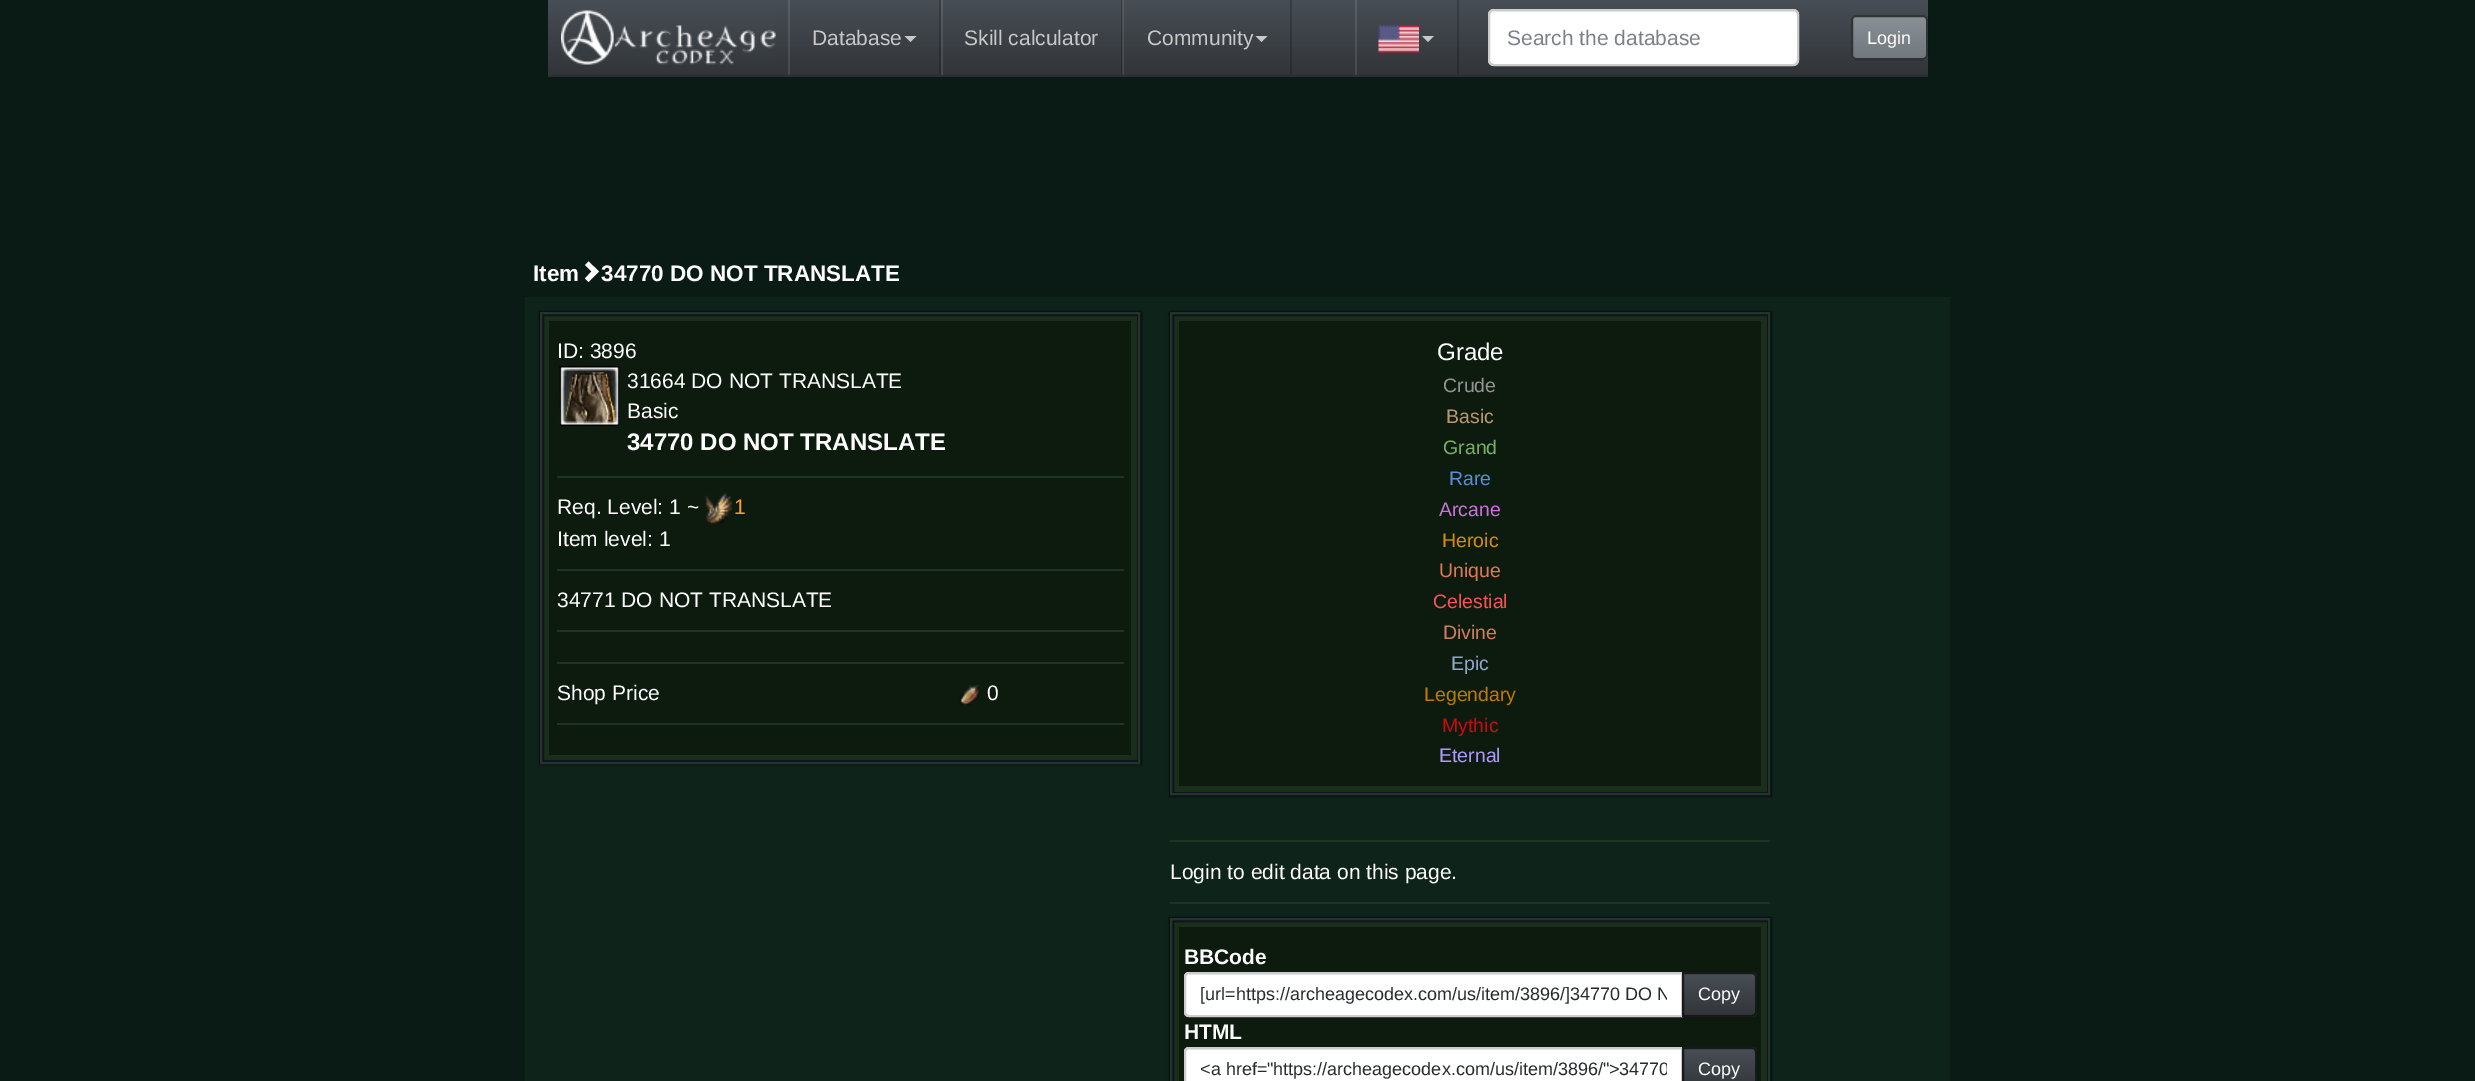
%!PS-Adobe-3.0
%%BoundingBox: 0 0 2475 1081
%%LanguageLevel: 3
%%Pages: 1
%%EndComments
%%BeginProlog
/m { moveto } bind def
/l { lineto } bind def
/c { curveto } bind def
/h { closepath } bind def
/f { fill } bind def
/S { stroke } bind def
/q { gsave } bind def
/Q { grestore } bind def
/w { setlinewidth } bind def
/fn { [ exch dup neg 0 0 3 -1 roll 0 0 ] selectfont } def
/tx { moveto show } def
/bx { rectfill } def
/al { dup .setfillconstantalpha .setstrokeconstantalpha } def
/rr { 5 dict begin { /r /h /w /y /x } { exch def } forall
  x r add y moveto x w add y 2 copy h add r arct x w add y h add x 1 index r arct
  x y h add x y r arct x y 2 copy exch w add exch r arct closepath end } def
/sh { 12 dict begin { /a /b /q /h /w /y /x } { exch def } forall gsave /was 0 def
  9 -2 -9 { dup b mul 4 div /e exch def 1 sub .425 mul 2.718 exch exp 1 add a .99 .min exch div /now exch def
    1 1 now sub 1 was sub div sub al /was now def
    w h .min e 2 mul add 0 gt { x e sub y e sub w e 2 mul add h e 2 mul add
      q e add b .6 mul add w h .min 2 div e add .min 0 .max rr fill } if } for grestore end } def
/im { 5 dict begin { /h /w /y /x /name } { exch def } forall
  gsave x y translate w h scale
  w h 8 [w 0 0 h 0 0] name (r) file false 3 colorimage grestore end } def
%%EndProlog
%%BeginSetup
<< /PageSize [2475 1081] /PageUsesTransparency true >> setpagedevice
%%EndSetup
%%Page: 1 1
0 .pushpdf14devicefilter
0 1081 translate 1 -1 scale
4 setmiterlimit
0.035 0.106 0.078 setrgbcolor
0 0 2475 1081 bx
q 548 0 m 1928 0 l 1928 75 l 548 75 l h clip newpath
<< /ShadingType 2 /ColorSpace /DeviceRGB /Coords [1238 0 1238 75] /Extend [true true] /Function << /FunctionType 3 /Domain [0 1] /Functions [<< /FunctionType 2 /Domain [0 1] /C0 [0.282 0.306 0.333] /C1 [0.227 0.247 0.267] /N 1 >> << /FunctionType 2 /Domain [0 1] /C0 [0.227 0.247 0.267] /C1 [0.192 0.208 0.224] /N 1 >>] /Bounds [0.6] /Encode [0 1 0 1] >> >> shfill Q
q 1355 0 m 1357 0 l 1357 75 l 1355 75 l h clip newpath
<< /ShadingType 2 /ColorSpace /DeviceRGB /Coords [1238 0 1238 75] /Extend [true true] /Function << /FunctionType 3 /Domain [0 1] /Functions [<< /FunctionType 2 /Domain [0 1] /C0 [0.353 0.376 0.4] /C1 [0.306 0.322 0.341] /N 1 >> << /FunctionType 2 /Domain [0 1] /C0 [0.306 0.322 0.341] /C1 [0.275 0.286 0.302] /N 1 >>] /Bounds [0.6] /Encode [0 1 0 1] >> >> shfill Q
q 1457 0 m 1459 0 l 1459 75 l 1457 75 l h clip newpath
<< /ShadingType 2 /ColorSpace /DeviceRGB /Coords [1238 0 1238 75] /Extend [true true] /Function << /FunctionType 3 /Domain [0 1] /Functions [<< /FunctionType 2 /Domain [0 1] /C0 [0.227 0.243 0.267] /C1 [0.18 0.196 0.212] /N 1 >> << /FunctionType 2 /Domain [0 1] /C0 [0.18 0.196 0.212] /C1 [0.153 0.165 0.18] /N 1 >>] /Bounds [0.6] /Encode [0 1 0 1] >> >> shfill Q
q 1123 0 m 1124 0 l 1124 75 l 1123 75 l h clip newpath
<< /ShadingType 2 /ColorSpace /DeviceRGB /Coords [1238 0 1238 75] /Extend [true true] /Function << /FunctionType 3 /Domain [0 1] /Functions [<< /FunctionType 2 /Domain [0 1] /C0 [0.353 0.376 0.4] /C1 [0.306 0.322 0.341] /N 1 >> << /FunctionType 2 /Domain [0 1] /C0 [0.306 0.322 0.341] /C1 [0.275 0.286 0.302] /N 1 >>] /Bounds [0.6] /Encode [0 1 0 1] >> >> shfill Q
q 1290 0 m 1292 0 l 1292 75 l 1290 75 l h clip newpath
<< /ShadingType 2 /ColorSpace /DeviceRGB /Coords [1238 0 1238 75] /Extend [true true] /Function << /FunctionType 3 /Domain [0 1] /Functions [<< /FunctionType 2 /Domain [0 1] /C0 [0.227 0.243 0.267] /C1 [0.18 0.196 0.212] /N 1 >> << /FunctionType 2 /Domain [0 1] /C0 [0.18 0.196 0.212] /C1 [0.153 0.165 0.18] /N 1 >>] /Bounds [0.6] /Encode [0 1 0 1] >> >> shfill Q
q 941 0 m 943 0 l 943 75 l 941 75 l h clip newpath
<< /ShadingType 2 /ColorSpace /DeviceRGB /Coords [1238 0 1238 75] /Extend [true true] /Function << /FunctionType 3 /Domain [0 1] /Functions [<< /FunctionType 2 /Domain [0 1] /C0 [0.353 0.376 0.4] /C1 [0.306 0.322 0.341] /N 1 >> << /FunctionType 2 /Domain [0 1] /C0 [0.306 0.322 0.341] /C1 [0.275 0.286 0.302] /N 1 >>] /Bounds [0.6] /Encode [0 1 0 1] >> >> shfill Q
q 1121 0 m 1122 0 l 1122 75 l 1121 75 l h clip newpath
<< /ShadingType 2 /ColorSpace /DeviceRGB /Coords [1238 0 1238 75] /Extend [true true] /Function << /FunctionType 3 /Domain [0 1] /Functions [<< /FunctionType 2 /Domain [0 1] /C0 [0.227 0.243 0.267] /C1 [0.18 0.196 0.212] /N 1 >> << /FunctionType 2 /Domain [0 1] /C0 [0.18 0.196 0.212] /C1 [0.153 0.165 0.18] /N 1 >>] /Bounds [0.6] /Encode [0 1 0 1] >> >> shfill Q
q 1122 0 m 1123 0 l 1123 75 l 1122 75 l h clip newpath
<< /ShadingType 2 /ColorSpace /DeviceRGB /Coords [1238 0 1238 75] /Extend [true true] /Function << /FunctionType 3 /Domain [0 1] /Functions [<< /FunctionType 2 /Domain [0 1] /C0 [0.306 0.318 0.341] /C1 [0.263 0.278 0.29] /N 1 >> << /FunctionType 2 /Domain [0 1] /C0 [0.263 0.278 0.29] /C1 [0.239 0.247 0.263] /N 1 >>] /Bounds [0.6] /Encode [0 1 0 1] >> >> shfill Q
q 788 0 m 790 0 l 790 75 l 788 75 l h clip newpath
<< /ShadingType 2 /ColorSpace /DeviceRGB /Coords [1238 0 1238 75] /Extend [true true] /Function << /FunctionType 3 /Domain [0 1] /Functions [<< /FunctionType 2 /Domain [0 1] /C0 [0.353 0.376 0.4] /C1 [0.306 0.322 0.341] /N 1 >> << /FunctionType 2 /Domain [0 1] /C0 [0.306 0.322 0.341] /C1 [0.275 0.286 0.302] /N 1 >>] /Bounds [0.6] /Encode [0 1 0 1] >> >> shfill Q
q 939 0 m 941 0 l 941 75 l 939 75 l h clip newpath
<< /ShadingType 2 /ColorSpace /DeviceRGB /Coords [1238 0 1238 75] /Extend [true true] /Function << /FunctionType 3 /Domain [0 1] /Functions [<< /FunctionType 2 /Domain [0 1] /C0 [0.227 0.243 0.267] /C1 [0.18 0.196 0.212] /N 1 >> << /FunctionType 2 /Domain [0 1] /C0 [0.18 0.196 0.212] /C1 [0.153 0.165 0.18] /N 1 >>] /Bounds [0.6] /Encode [0 1 0 1] >> >> shfill Q
0.169 0.18 0.196 setrgbcolor
548 75 1380 2 bx
(image0.raw) 561 10 215 55 im
/LiberationSans-Regular 21 fn
0.784 setgray
(Database) 812 45 tx
904.5 36 m 916.5 36 l 910.5 42 l h f
(Skill calculator) 964 45 tx
(Community) 1147 45 tx
1255.5 36 m 1267.5 36 l 1261.5 42 l h f
(image1.raw) 1378 25 41 28 im
1422 36 m 1434 36 l 1428 42 l h f
1 setgray
1488 9 311 57 6 rr f
0.925 setgray
1494 12 m 1792 12 l 1795 12 1797 14 1797 16 c 1797 13 1795 11 1792 11 c 1495 11 l 1492 11 1490 13 1490 16 c 1490 14 1492 12 1494 12 c h f
0.8 setgray
2 w
1489 10 309 55 5 rr S
0.478 0.51 0.533 setrgbcolor
(Search the database) 1507 45 tx
1851 15 77 45 5 rr f
q 1853 17 m 1926 17 l 1926 59 l 1853 59 l h clip newpath
<< /ShadingType 2 /ColorSpace /DeviceRGB /Coords [1889 16 1889 59] /Extend [true true] /Function << /FunctionType 3 /Domain [0 1] /Functions [<< /FunctionType 2 /Domain [0 1] /C0 [0.541 0.569 0.588] /C1 [0.478 0.51 0.533] /N 1 >> << /FunctionType 2 /Domain [0 1] /C0 [0.478 0.51 0.533] /C1 [0.439 0.471 0.49] /N 1 >>] /Bounds [0.6] /Encode [0 1 0 1] >> >> shfill Q
0.6 al
0 setgray
1852 16 75 43 4 rr S
/LiberationSans-Regular 18 fn
1 al
1 setgray
(Login) 1867 44 tx
/LiberationSans-Bold 22.5 fn
(Item) 533 281 tx
599 271.5 m 588.5 282 l 585 278.5 l 591.5 271.5 l 585 265 l 588.5 261.5 l h f
(34770 DO NOT TRANSLATE) 601 281 tx
0.055 0.141 0.102 setrgbcolor
525 297 1425 784 bx
0.024 0.043 0.078 setrgbcolor
539 311 603 454 0 1 1 sh
0.106 0.18 0.106 setrgbcolor
543 315 m 1138 315 l 1138 761 l 543 761 l h q f Q
0.051 0.078 0.125 setrgbcolor
S
0.141 0.204 0.153 setrgbcolor
541 313 598 450 rectstroke
0.051 0.106 0.059 setrgbcolor
549 321 582 434 bx
/LiberationSans-Regular 21 fn
1 setgray
(ID: 3896) 557 358 tx
(image2.raw) 559 366 61 60 im
(image3.raw) 559 366 61 60 im
(31664 DO NOT TRANSLATE) 627 388 tx
(Basic) 627 418 tx
/LiberationSans-Bold 24 fn
(34770 DO NOT TRANSLATE) 627 450 tx
0.118 0.204 0.145 setrgbcolor
557 476 567 2 bx
/LiberationSans-Regular 21 fn
1 setgray
(Req. Level: 1 ~) 557 514 tx
(image4.raw) 705 493 28 31 im
1 0.612 0.153 setrgbcolor
(1) 734 514 tx
1 setgray
(Item level: 1) 557 546 tx
0.118 0.204 0.145 setrgbcolor
557 569 567 2 bx
1 setgray
(34771 DO NOT TRANSLATE) 557 607 tx
0.118 0.204 0.145 setrgbcolor
557 630 567 2 bx
557 662 567 2 bx
1 setgray
(Shop Price) 557 700 tx
(image5.raw) 959 684 21 22 im
(0) 987 700 tx
0.118 0.204 0.145 setrgbcolor
557 723 567 2 bx
0.024 0.043 0.078 setrgbcolor
1169 311 603 486 0 1 1 sh
0.106 0.18 0.106 setrgbcolor
1173 315 m 1768 315 l 1768 793 l 1173 793 l h q f Q
0.051 0.078 0.125 setrgbcolor
S
0.141 0.204 0.153 setrgbcolor
1171 313 598 481 rectstroke
0.051 0.106 0.059 setrgbcolor
1179 321 582 465 bx
/LiberationSans-Regular 24 fn
1 setgray
(Grade) 1437 360 tx
/LiberationSans-Regular 19.5 fn
0.58 0.573 0.576 setrgbcolor
(Crude) 1443 392 tx
0.729 0.592 0.427 setrgbcolor
(Basic) 1446 423 tx
0.467 0.69 0.392 setrgbcolor
(Grand) 1443 454 tx
0.333 0.561 0.843 setrgbcolor
(Rare) 1449 485 tx
0.796 0.447 0.847 setrgbcolor
(Arcane) 1439 516 tx
0.843 0.545 0.024 setrgbcolor
(Heroic) 1442 547 tx
0.882 0.471 0.325 setrgbcolor
(Unique) 1439 577 tx
0.976 0.322 0.322 setrgbcolor
(Celestial) 1433 608 tx
0.812 0.49 0.365 setrgbcolor
(Divine) 1443 639 tx
0.561 0.647 0.792 setrgbcolor
(Epic) 1451 670 tx
0.749 0.475 0 setrgbcolor
(Legendary) 1424 701 tx
0.788 0.043 0.043 setrgbcolor
(Mythic) 1442 732 tx
0.682 0.596 0.996 setrgbcolor
(Eternal) 1439 762 tx
0.118 0.204 0.145 setrgbcolor
1170 840 600 2 bx
/LiberationSans-Regular 21 fn
1 setgray
(Login to edit data on this page.) 1170 879 tx
0.118 0.204 0.145 setrgbcolor
1170 902 600 2 bx
0.024 0.043 0.078 setrgbcolor
1169 917 603 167 0 1 1 sh
0.106 0.18 0.106 setrgbcolor
1173 921 m 1768 921 l 1768 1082 l 1173 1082 l h q f Q
0.051 0.078 0.125 setrgbcolor
S
0.141 0.204 0.153 setrgbcolor
1171 919 598 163 rectstroke
0.051 0.106 0.059 setrgbcolor
1179 927 582 154 bx
/LiberationSans-Bold 21 fn
1 setgray
(BBCode) 1184 964 tx
1189 972 m 1683 972 l 1683 1017 l 1189 1017 l 1186 1017 1184 1015 1184 1012 c 1184 977 l 1184 974 1186 972 1189 972 c h f
0.925 setgray
1188 975 m 1682 975 l 1682 974 l 1188 974 l 1186 974 1185 976 1185 978 c 1185 976 1186 975 1188 975 c h f
0.8 setgray
1189 973 m 1682 973 l 1682 1016 l 1189 1016 l 1187 1016 1185 1014 1185 1012 c 1185 977 l 1185 975 1187 973 1189 973 c h S
q
1200 984 467 21 rectclip
/LiberationSans-Regular 18 fn
0.153 0.169 0.188 setrgbcolor
([url=https://archeagecodex.com/us/item/3896/]34770 DO N) 1200 1000 tx
Q
0.227 0.247 0.267 setrgbcolor
1682 972 m 1752 972 l 1755 972 1757 974 1757 977 c 1757 1012 l 1757 1015 1755 1017 1752 1017 c 1682 1017 l h f
q 1683 974 m 1755 974 l 1755 1016 l 1683 1016 l h clip newpath
<< /ShadingType 2 /ColorSpace /DeviceRGB /Coords [1719 974 1719 1016] /Extend [true true] /Function << /FunctionType 3 /Domain [0 1] /Functions [<< /FunctionType 2 /Domain [0 1] /C0 [0.282 0.306 0.333] /C1 [0.227 0.247 0.267] /N 1 >> << /FunctionType 2 /Domain [0 1] /C0 [0.227 0.247 0.267] /C1 [0.192 0.208 0.224] /N 1 >>] /Bounds [0.6] /Encode [0 1 0 1] >> >> shfill Q
0.6 al
0 setgray
1683 973 m 1752 973 l 1754 973 1756 975 1756 977 c 1756 1012 l 1756 1014 1754 1016 1752 1016 c 1683 1016 l h S
/LiberationSans-Regular 18 fn
1 al
1 setgray
(Copy) 1698 1000 tx
/LiberationSans-Bold 21 fn
(HTML) 1184 1039 tx
1189 1047 m 1683 1047 l 1683 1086 l 1189 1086 l 1186 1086 1184 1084 1184 1081 c 1184 1052 l 1184 1049 1186 1047 1189 1047 c h f
0.925 setgray
1188 1050 m 1682 1050 l 1682 1049 l 1188 1049 l 1186 1049 1185 1051 1185 1053 c 1185 1051 1186 1050 1188 1050 c h f
0.8 setgray
1189 1048 m 1682 1048 l 1682 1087 l 1189 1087 l 1187 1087 1185 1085 1185 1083 c 1185 1052 l 1185 1050 1187 1048 1189 1048 c h S
q
1200 1059 467 21 rectclip
/LiberationSans-Regular 18 fn
0.153 0.169 0.188 setrgbcolor
(<a href="https://archeagecodex.com/us/item/3896/">34770) 1200 1075 tx
Q
0.227 0.247 0.267 setrgbcolor
1682 1047 m 1752 1047 l 1755 1047 1757 1049 1757 1052 c 1757 1081 l 1757 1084 1755 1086 1752 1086 c 1682 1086 l h f
q 1683 1049 m 1755 1049 l 1755 1081 l 1683 1081 l h clip newpath
<< /ShadingType 2 /ColorSpace /DeviceRGB /Coords [1719 1049 1719 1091] /Extend [true true] /Function << /FunctionType 3 /Domain [0 1] /Functions [<< /FunctionType 2 /Domain [0 1] /C0 [0.282 0.306 0.333] /C1 [0.227 0.247 0.267] /N 1 >> << /FunctionType 2 /Domain [0 1] /C0 [0.227 0.247 0.267] /C1 [0.192 0.208 0.224] /N 1 >>] /Bounds [0.6] /Encode [0 1 0 1] >> >> shfill Q
0.6 al
0 setgray
1683 1048 m 1752 1048 l 1754 1048 1756 1050 1756 1052 c 1756 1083 l 1756 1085 1754 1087 1752 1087 c 1683 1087 l h S
/LiberationSans-Regular 18 fn
1 al
1 setgray
(Copy) 1698 1075 tx
.poppdf14devicefilter showpage
%%EOF
